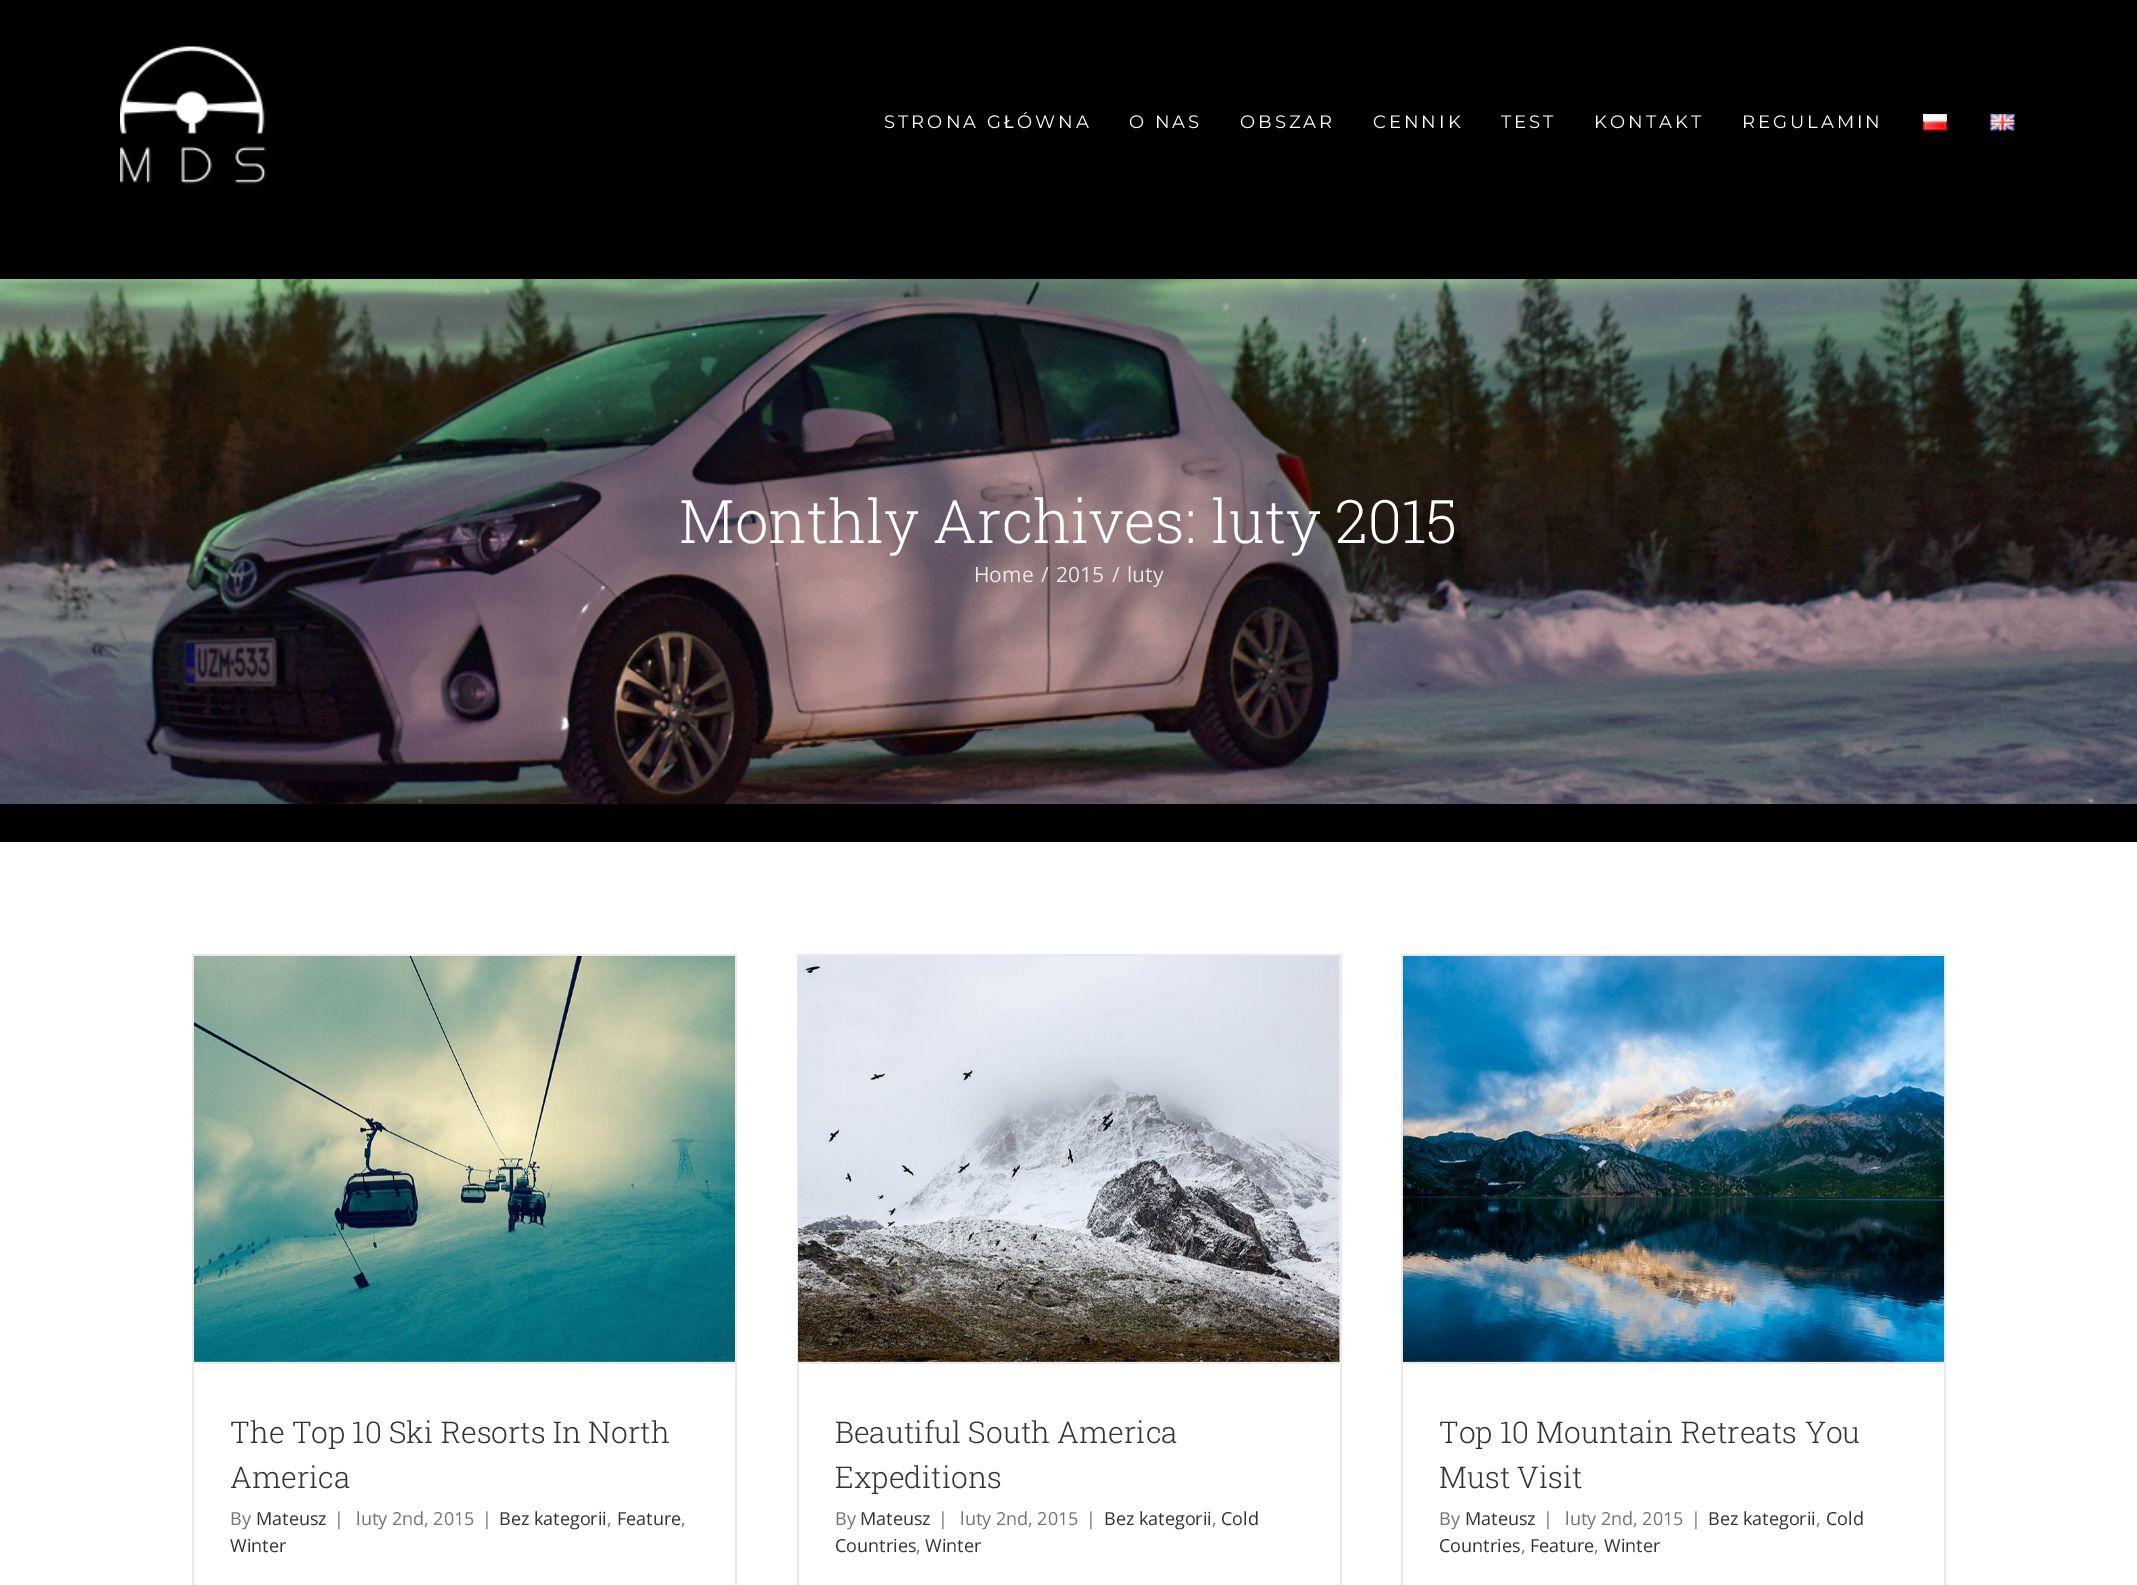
%!PS-Adobe-3.0
%%BoundingBox: 0 0 2137 1585
%%LanguageLevel: 3
%%Pages: 1
%%EndComments
%%BeginProlog
/m { moveto } bind def
/fn { [ exch dup neg 0 0 3 -1 roll 0 0 ] selectfont } def
/tx { moveto show } def
/bx { rectfill } def
/im { 5 dict begin { /h /w /y /x /name } { exch def } forall
  gsave x y translate w h scale
  w h 8 [w 0 0 h 0 0] name (r) file false 3 colorimage grestore end } def
%%EndProlog
%%BeginSetup
<< /PageSize [2137 1585] >> setpagedevice
%%EndSetup
%%Page: 1 1
0 1585 translate 1 -1 scale
4 setmiterlimit
1 setgray
0 0 2137 1585 bx
0 setgray
0 0 2137 842 bx
(image0.raw) 120 46 147 139 im
/Montserrat-Thin 18 fn
1 setgray
884 128 m 3 0 (STRONA G) ashow
/LiberationSans-Regular 18 fn
1004 128 m 3 0 (Ł) ashow
/Montserrat-Thin 18 fn
1017 128 m 3 0 (ÓWNA) ashow
1129 128 m 3 0 (O NAS) ashow
1240 128 m 3 0 (OBSZAR) ashow
1373 128 m 3 0 (CENNIK) ashow
1501 128 m 3 0 (TEST) ashow
1594 128 m 3 0 (KONTAKT) ashow
1742 128 m 3 0 (REGULAMIN) ashow
(image1.raw) 1923 114 24 17 im
(image2.raw) 1990 114 25 17 im
(image3.raw) 0 279 2137 525 im
/RobotoSlab-Light 60 fn
(Monthly Archives: luty 2015) 679 543 tx
/OpenSans-Regular 21 fn
0.918 setgray
(Home) 974 582 tx
(/) 1041 582 tx
(2015) 1056 582 tx
(/) 1112 582 tx
(luty) 1127 582 tx
0.922 0.918 0.918 setrgbcolor
192 954 545 2 bx
735 954 2 631 bx
192 954 2 631 bx
194 1362 541 2 bx
(image4.raw) 194 956 541 406 im
/RobotoSlab-Light 30 fn
0.2 setgray
(The Top 10 Ski Resorts In North) 230 1443 tx
(America) 230 1488 tx
/OpenSans-Regular 18 fn
0.455 setgray
(By) 230 1525 tx
0.2 setgray
(Mateusz) 256 1525 tx
0.455 setgray
(|) 334 1525 tx
(luty 2nd, 2015) 356 1525 tx
(|) 482 1525 tx
0.2 setgray
(Bez kategorii) 499 1525 tx
0.455 setgray
(,) 607 1525 tx
0.2 setgray
(Feature) 617 1525 tx
0.455 setgray
(,) 681 1525 tx
0.2 setgray
(Winter) 230 1552 tx
0.922 0.918 0.918 setrgbcolor
797 954 544 2 bx
1340 954 2 631 bx
797 954 2 631 bx
798 1362 542 2 bx
(image5.raw) 798 956 542 406 im
/RobotoSlab-Light 30 fn
0.2 setgray
(Beautiful South America) 835 1443 tx
(Expeditions) 835 1488 tx
/OpenSans-Regular 18 fn
0.455 setgray
(By) 835 1525 tx
0.2 setgray
(Mateusz) 860 1525 tx
0.455 setgray
(|) 938 1525 tx
(luty 2nd, 2015) 960 1525 tx
(|) 1086 1525 tx
0.2 setgray
(Bez kategorii) 1104 1525 tx
0.455 setgray
(,) 1212 1525 tx
0.2 setgray
(Cold) 1221 1525 tx
(Countries) 835 1552 tx
0.455 setgray
(,) 916 1552 tx
0.2 setgray
(Winter) 925 1552 tx
0.922 0.918 0.918 setrgbcolor
1401 954 545 2 bx
1944 954 2 631 bx
1401 954 2 631 bx
1403 1362 541 2 bx
(image6.raw) 1403 956 541 406 im
/RobotoSlab-Light 30 fn
0.2 setgray
(Top 10 Mountain Retreats You) 1439 1443 tx
(Must Visit) 1439 1488 tx
/OpenSans-Regular 18 fn
0.455 setgray
(By) 1439 1525 tx
0.2 setgray
(Mateusz) 1465 1525 tx
0.455 setgray
(|) 1543 1525 tx
(luty 2nd, 2015) 1565 1525 tx
(|) 1691 1525 tx
0.2 setgray
(Bez kategorii) 1708 1525 tx
0.455 setgray
(,) 1816 1525 tx
0.2 setgray
(Cold) 1826 1525 tx
(Countries) 1439 1552 tx
0.455 setgray
(,) 1521 1552 tx
0.2 setgray
(Feature) 1530 1552 tx
0.455 setgray
(,) 1594 1552 tx
0.2 setgray
(Winter) 1604 1552 tx
showpage
%%EOF
